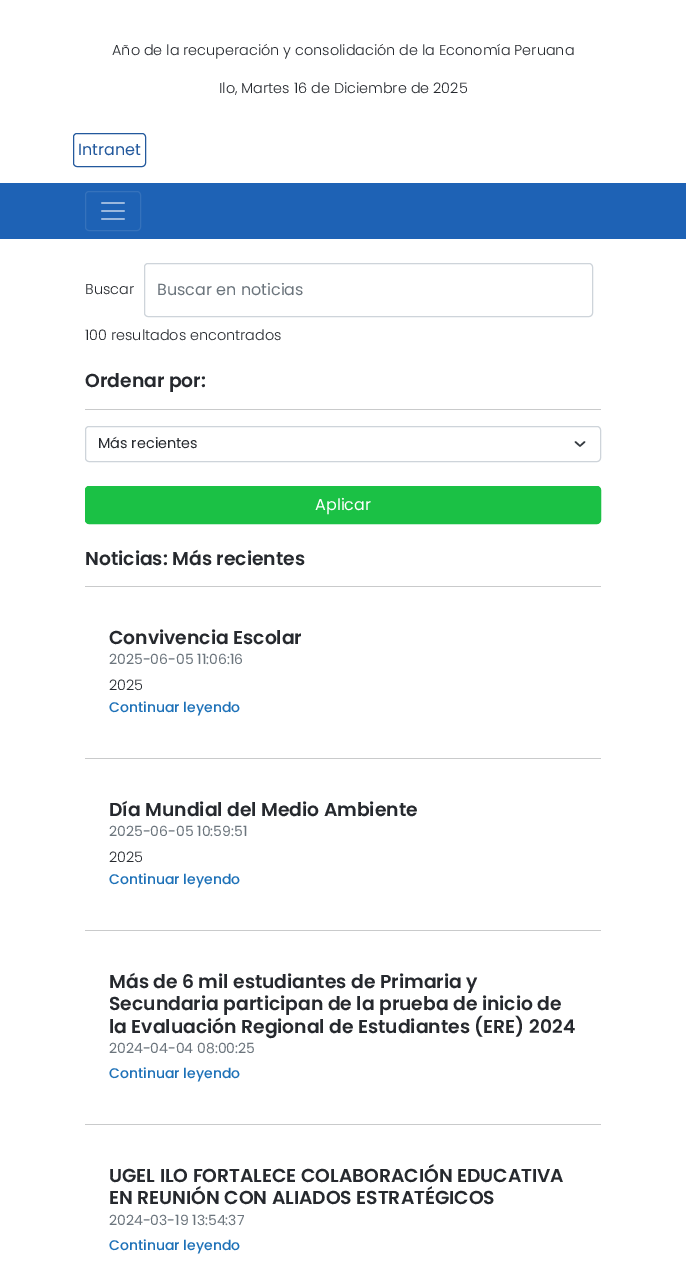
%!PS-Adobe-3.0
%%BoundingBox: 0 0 686 1276
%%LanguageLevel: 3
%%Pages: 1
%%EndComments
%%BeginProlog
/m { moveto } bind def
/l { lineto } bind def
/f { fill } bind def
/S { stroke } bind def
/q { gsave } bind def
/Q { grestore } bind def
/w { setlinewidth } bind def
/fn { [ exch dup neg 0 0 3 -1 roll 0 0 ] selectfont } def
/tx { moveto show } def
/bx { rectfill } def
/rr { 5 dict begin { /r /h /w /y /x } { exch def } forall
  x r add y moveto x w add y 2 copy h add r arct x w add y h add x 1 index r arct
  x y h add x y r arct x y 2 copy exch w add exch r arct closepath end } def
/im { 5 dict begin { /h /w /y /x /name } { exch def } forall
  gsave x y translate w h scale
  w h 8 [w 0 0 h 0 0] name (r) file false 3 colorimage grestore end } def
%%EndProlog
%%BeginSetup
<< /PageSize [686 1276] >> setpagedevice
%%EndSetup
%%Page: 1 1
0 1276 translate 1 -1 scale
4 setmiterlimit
1 setgray
0 0 686 1276 bx
/Poppins-Light 14.4 fn
0.149 0.161 0.18 setrgbcolor
(Año de la recuperación y consolidación de la Economía Peruana) 112 55 tx
(Ilo, Martes 16 de Diciembre de 2025) 219 93 tx
0.137 0.349 0.616 setrgbcolor
73.5 133.5 72 33 3.5 rr S
/Poppins-Regular 16 fn
(Intranet) 78 155 tx
0.118 0.384 0.71 setrgbcolor
0 183 686 56 bx
0.208 0.447 0.737 setrgbcolor
85.5 191.5 55 39 3.5 rr S
(image0.raw) 101 202 24 18 im
/Poppins-Light 14.4 fn
0.149 0.161 0.18 setrgbcolor
(Buscar) 85 294 tx
0.808 0.831 0.855 setrgbcolor
144.5 263.5 448 53 3.5 rr S
/Poppins-Regular 16 fn
0.424 0.459 0.49 setrgbcolor
(Buscar en noticias) 157 295 tx
/Poppins-Light 14.4 fn
0.149 0.161 0.18 setrgbcolor
(100 resultados encontrados) 85 340 tx
/Poppins-SemiBold 18.75 fn
(Ordenar por:) 85 387 tx
0.788 0.792 0.796 setrgbcolor
85 409 516 1 bx
0.204 0.227 0.251 setrgbcolor
1.5 w
1 setlinecap
1 setlinejoin
575.5 442 m 580 446 l 584.5 442 l S
0.808 0.831 0.855 setrgbcolor
1 w
0 setlinecap
0 setlinejoin
85.5 426.5 515 35 3.5 rr S
/Poppins-Regular 14.4 fn
0.149 0.161 0.18 setrgbcolor
(Más recientes) 98 448 tx
0.106 0.757 0.271 setrgbcolor
85.5 486.5 515 37 3.5 rr q f Q
S
/Poppins-Regular 16 fn
1 setgray
(Aplicar) 315 510 tx
/Poppins-SemiBold 18.75 fn
0.149 0.161 0.18 setrgbcolor
(Noticias: Más recientes) 85 565 tx
0.788 0.792 0.796 setrgbcolor
85 586 516 1 bx
0.149 0.161 0.18 setrgbcolor
(Convivencia Escolar) 109 644 tx
/Poppins-Regular 14 fn
0.424 0.459 0.49 setrgbcolor
(2025-06-05 11:06:16) 109 664 tx
/Poppins-Light 14.4 fn
0.149 0.161 0.18 setrgbcolor
(2025) 109 690 tx
/Poppins-Medium 14 fn
0.114 0.443 0.722 setrgbcolor
(Continuar leyendo) 109 712 tx
0.788 0.792 0.796 setrgbcolor
85 758 516 1 bx
/Poppins-SemiBold 18.75 fn
0.149 0.161 0.18 setrgbcolor
(Día Mundial del Medio Ambiente) 109 816 tx
/Poppins-Regular 14 fn
0.424 0.459 0.49 setrgbcolor
(2025-06-05 10:59:51) 109 836 tx
/Poppins-Light 14.4 fn
0.149 0.161 0.18 setrgbcolor
(2025) 109 862 tx
/Poppins-Medium 14 fn
0.114 0.443 0.722 setrgbcolor
(Continuar leyendo) 109 884 tx
0.788 0.792 0.796 setrgbcolor
85 930 516 1 bx
/Poppins-SemiBold 18.75 fn
0.149 0.161 0.18 setrgbcolor
(Más de 6 mil estudiantes de Primaria y) 109 988 tx
(Secundaria participan de la prueba de inicio de) 109 1010 tx
(la Evaluación Regional de Estudiantes \(ERE\) 2024) 109 1033 tx
/Poppins-Regular 14 fn
0.424 0.459 0.49 setrgbcolor
(2024-04-04 08:00:25) 109 1053 tx
/Poppins-Medium 14 fn
0.114 0.443 0.722 setrgbcolor
(Continuar leyendo) 109 1078 tx
0.788 0.792 0.796 setrgbcolor
85 1124 516 1 bx
/Poppins-SemiBold 18.75 fn
0.149 0.161 0.18 setrgbcolor
(UGEL ILO FORTALECE COLABORACIÓN EDUCATIVA) 109 1182 tx
(EN REUNIÓN CON ALIADOS ESTRATÉGICOS) 109 1204 tx
/Poppins-Regular 14 fn
0.424 0.459 0.49 setrgbcolor
(2024-03-19 13:54:37) 109 1225 tx
/Poppins-Medium 14 fn
0.114 0.443 0.722 setrgbcolor
(Continuar leyendo) 109 1250 tx
showpage
%%EOF
